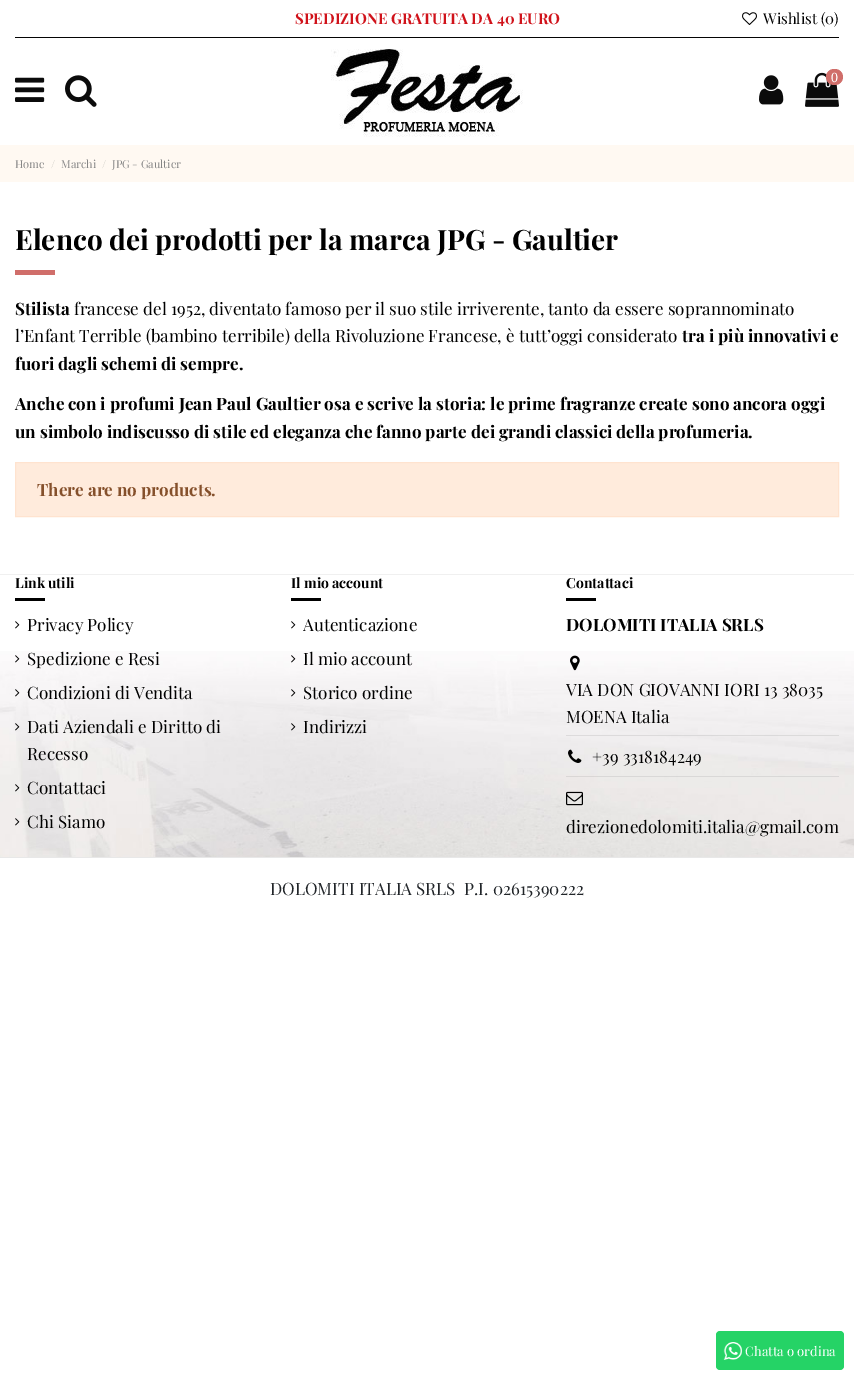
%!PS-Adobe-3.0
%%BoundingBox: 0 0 854 1390
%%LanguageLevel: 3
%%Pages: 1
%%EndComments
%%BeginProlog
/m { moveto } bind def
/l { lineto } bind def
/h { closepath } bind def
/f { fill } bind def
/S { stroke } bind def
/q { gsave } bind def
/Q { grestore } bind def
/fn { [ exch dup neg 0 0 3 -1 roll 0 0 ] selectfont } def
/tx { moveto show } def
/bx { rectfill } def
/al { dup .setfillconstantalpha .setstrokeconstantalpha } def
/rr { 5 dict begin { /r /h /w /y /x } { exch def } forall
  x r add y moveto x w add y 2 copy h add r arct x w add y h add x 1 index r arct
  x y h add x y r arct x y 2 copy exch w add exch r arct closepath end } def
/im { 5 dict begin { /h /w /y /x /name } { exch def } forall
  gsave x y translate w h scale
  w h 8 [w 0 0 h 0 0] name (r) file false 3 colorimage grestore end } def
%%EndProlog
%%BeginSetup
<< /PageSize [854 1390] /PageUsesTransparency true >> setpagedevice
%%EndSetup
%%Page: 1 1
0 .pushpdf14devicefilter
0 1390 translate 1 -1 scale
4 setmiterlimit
1 setgray
0 0 854 1390 bx
0.02 setgray
15 37 824 1 bx
/PlayfairDisplay-Bold 15 fn
0.816 0.071 0.102 setrgbcolor
(SPEDIZIONE GRATUITA DA 40 EURO) 295 24 tx
(image0.raw) 742 12 15 13 im
/PlayfairDisplay-Regular 15 fn
0 setgray
(Wishlist \(0\)) 763 24 tx
(image1.raw) 15 77 30 25 im
(image2.raw) 65 75 32 32 im
(image3.raw) 331 49 192 88 im
(image4.raw) 759 75 25 30 im
(image5.raw) 805 72 34 35 im
0.816 0.431 0.416 setrgbcolor
826 69 17 16 8 rr f
/LiberationSerif-Regular 14 fn
1 setgray
(0) 831 82 tx
1 0.976 0.949 setrgbcolor
0 145 854 37 bx
/PlayfairDisplay-Regular 11 fn
0.522 setgray
(Home) 15 168 tx
0.808 0.796 0.776 setrgbcolor
(/) 51 168 tx
0.522 setgray
(Marchi) 61 168 tx
0.808 0.796 0.776 setrgbcolor
(/) 102 168 tx
0.522 setgray
(JPG - Gaultier) 112 168 tx
/PlayfairDisplay-Bold 28 fn
0 setgray
(Elenco dei prodotti per la marca JPG - Gaultier) 15 250 tx
0.816 0.431 0.416 setrgbcolor
15 270 40 5 bx
/PlayfairDisplay-Bold 17 fn
0 setgray
(Stilista) 15 315 tx
/PlayfairDisplay-Regular 17 fn
(francese del 1952, diventato famoso per il suo stile irriverente, tanto da essere soprannominato) 74 315 tx
(l’Enfant Terrible \(bambino terribile\) della Rivoluzione Francese, è tutt’oggi considerato) 15 342 tx
/PlayfairDisplay-Bold 17 fn
(tra i più innovativi e) 682 342 tx
(fuori dagli schemi di sempre.) 15 370 tx
(Anche con i profumi Jean Paul Gaultier osa e scrive la storia: le prime fragranze create sono ancora oggi) 15 410 tx
(un simbolo indiscusso di stile ed eleganza che fanno parte dei grandi classici della profumeria.) 15 438 tx
1 0.922 0.863 setrgbcolor
15.5 462.5 m 838.5 462.5 l 838.5 516.5 l 15.5 516.5 l h q f Q
1 0.89 0.812 setrgbcolor
S
0.522 0.314 0.169 setrgbcolor
(There are no products.) 37 496 tx
(image6.raw) 0 651 854 206 im
0.941 setgray
0 574 854 1 bx
/PlayfairDisplay-Bold 14 fn
0 setgray
(Link utili) 15 588 tx
15 598 30 3 bx
(image7.raw) 15 621 5 8 im
/PlayfairDisplay-Regular 17 fn
(Privacy Policy) 27 631 tx
(image8.raw) 15 655 5 8 im
(Spedizione e Resi) 27 665 tx
(image9.raw) 15 689 5 8 im
(Condizioni di Vendita) 27 699 tx
(image10.raw) 15 723 5 8 im
(Dati Aziendali e Diritto di) 27 733 tx
(Recesso) 27 760 tx
(image11.raw) 15 784 5 8 im
(Contattaci) 27 794 tx
(image12.raw) 15 818 5 8 im
(Chi Siamo) 27 828 tx
/PlayfairDisplay-Bold 14 fn
(Il mio account) 291 588 tx
291 598 30 3 bx
(image7.raw) 291 621 5 8 im
/PlayfairDisplay-Regular 17 fn
(Autenticazione) 303 631 tx
(image13.raw) 291 655 5 8 im
(Il mio account) 303 665 tx
(image14.raw) 291 689 5 8 im
(Storico ordine) 303 699 tx
(image15.raw) 291 723 5 8 im
(Indirizzi) 303 733 tx
/PlayfairDisplay-Bold 14 fn
(Contattaci) 566 588 tx
566 598 30 3 bx
/PlayfairDisplay-Bold 17 fn
(DOLOMITI ITALIA SRLS) 566 631 tx
(image16.raw) 570 655 10 16 im
/PlayfairDisplay-Regular 17 fn
(VIA DON GIOVANNI IORI 13 38035) 566 696 tx
(MOENA Italia) 566 723 tx
0.25 al
0.627 setgray
566 735 273 1 bx
1 al
(image17.raw) 568 749 14 14 im
0 setgray
(+39 3318184249) 592 763 tx
0.25 al
0.627 setgray
566 776 273 1 bx
1 al
(image18.raw) 566 791 17 15 im
0 setgray
(direzionedolomiti.italia@gmail.com) 566 833 tx
0.91 setgray
0 857 854 1 bx
0.129 0.145 0.161 setrgbcolor
(DOLOMITI ITALIA SRLS  P.I. 02615390222) 270 895 tx
0.145 0.827 0.4 setrgbcolor
716 1331 128 39 4 rr f
(image19.raw) 723 1342 19 18 im
/PlayfairDisplay-Regular 13 fn
1 setgray
(Chatta o ordina) 745 1356 tx
.poppdf14devicefilter showpage
%%EOF
